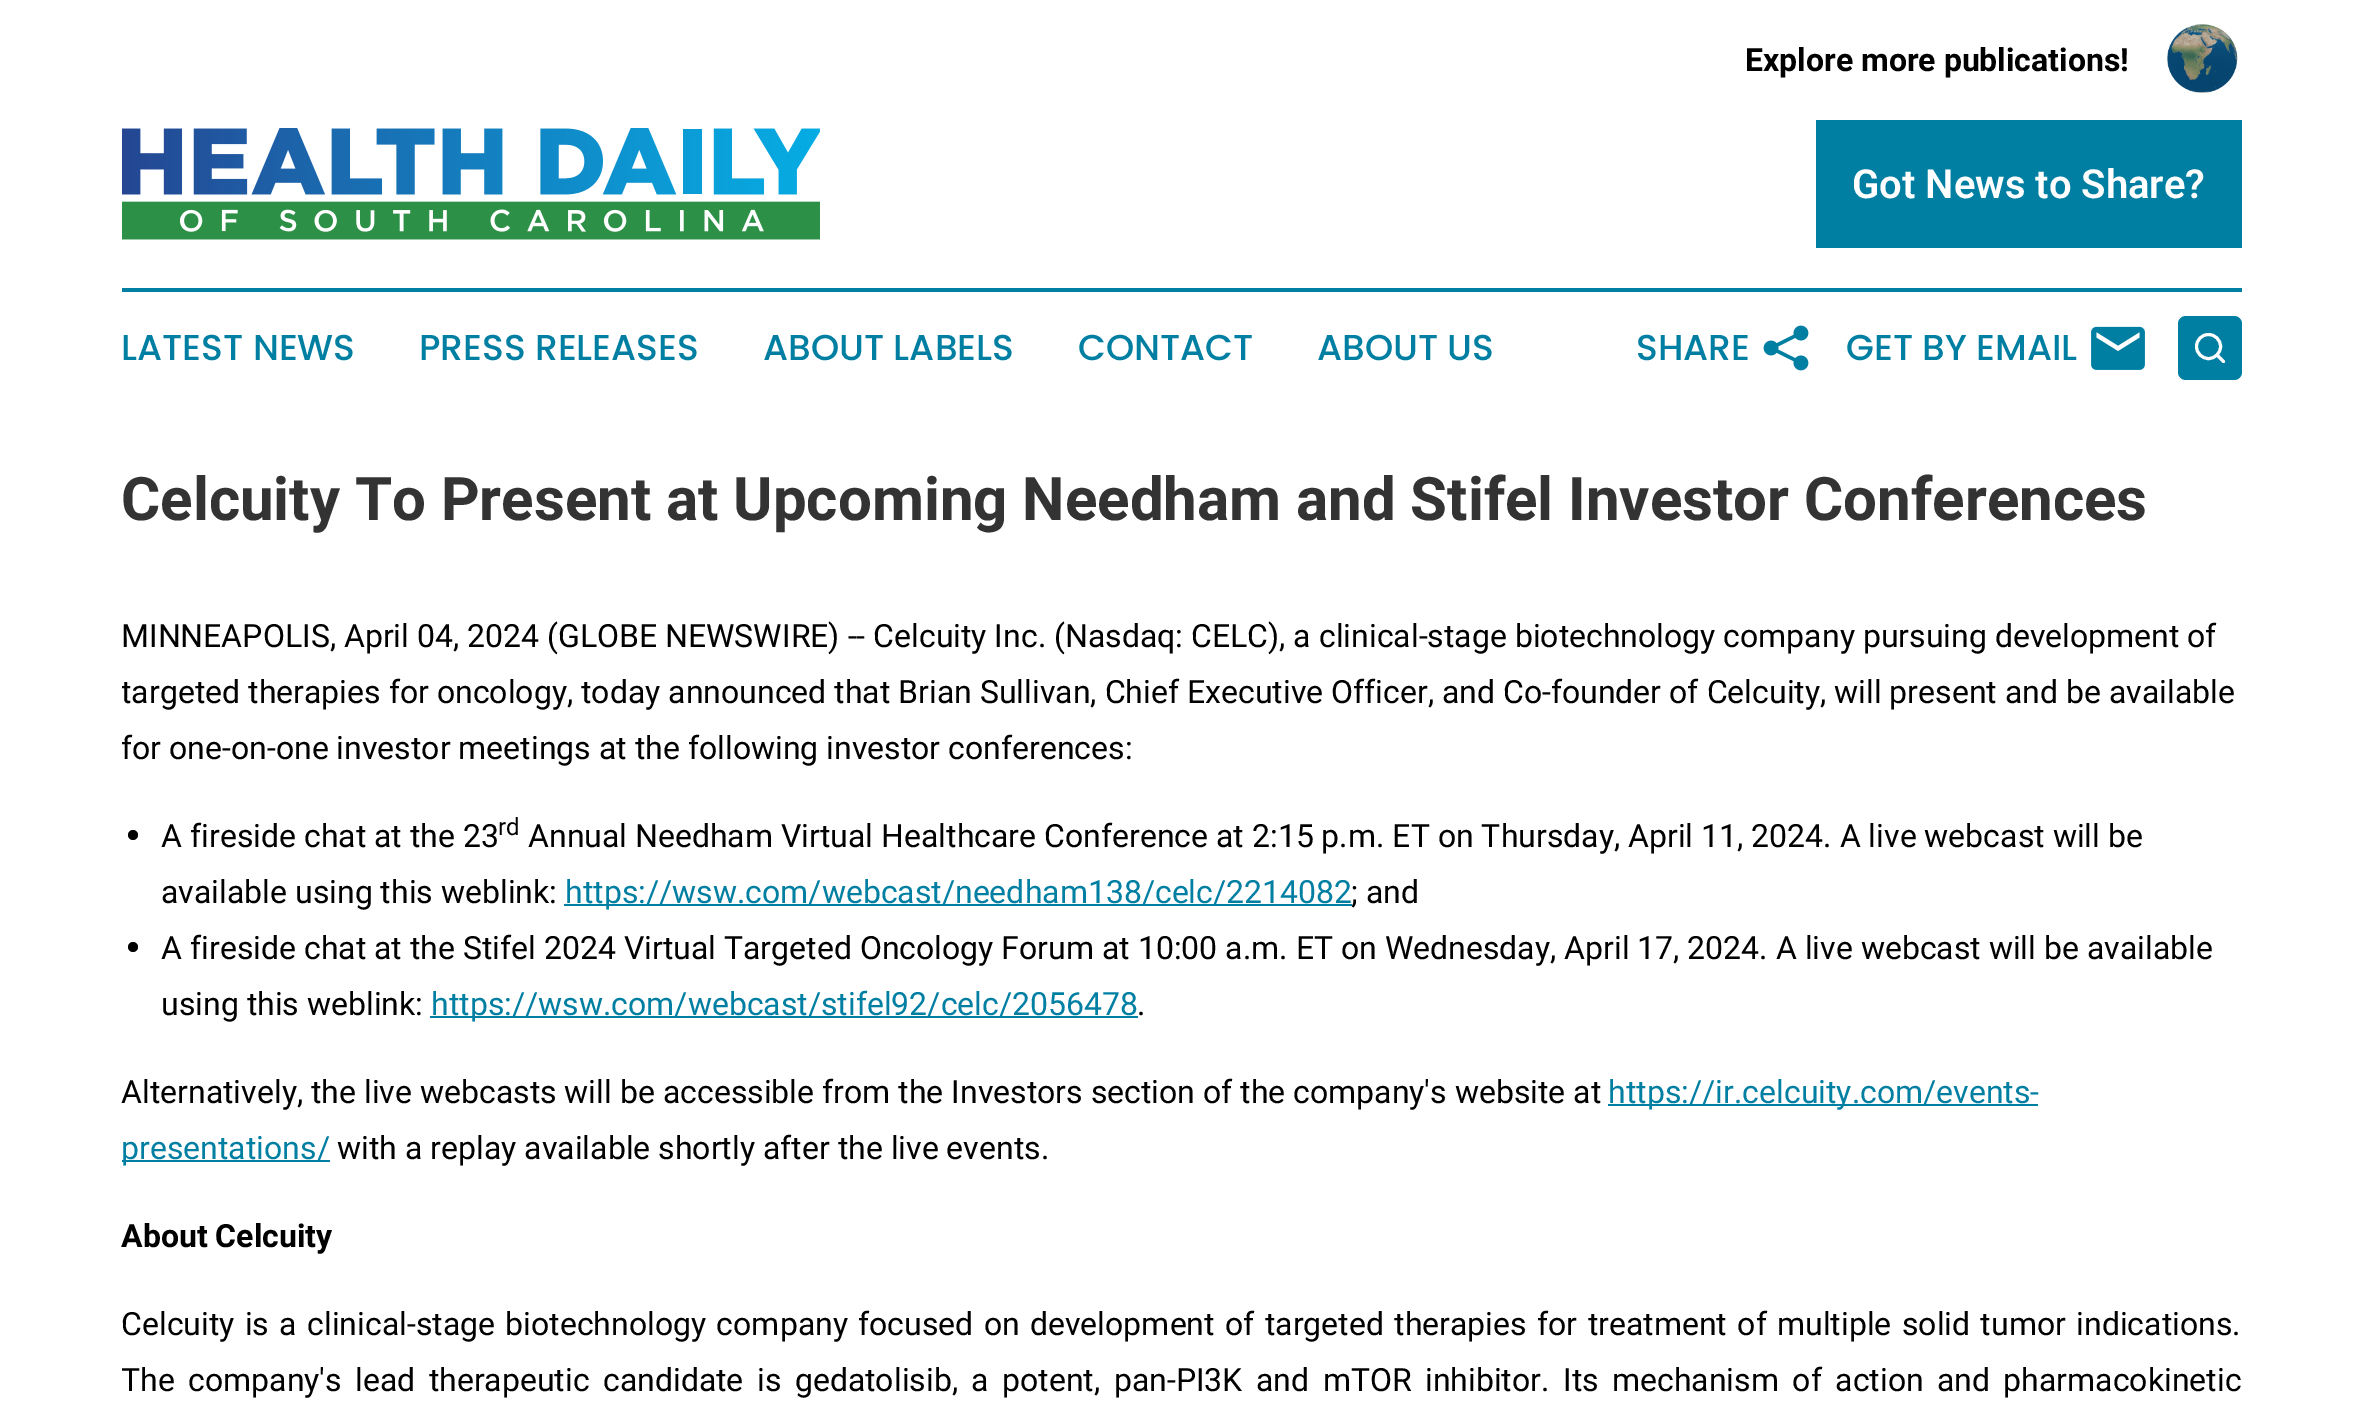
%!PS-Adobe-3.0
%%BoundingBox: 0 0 2361 1426
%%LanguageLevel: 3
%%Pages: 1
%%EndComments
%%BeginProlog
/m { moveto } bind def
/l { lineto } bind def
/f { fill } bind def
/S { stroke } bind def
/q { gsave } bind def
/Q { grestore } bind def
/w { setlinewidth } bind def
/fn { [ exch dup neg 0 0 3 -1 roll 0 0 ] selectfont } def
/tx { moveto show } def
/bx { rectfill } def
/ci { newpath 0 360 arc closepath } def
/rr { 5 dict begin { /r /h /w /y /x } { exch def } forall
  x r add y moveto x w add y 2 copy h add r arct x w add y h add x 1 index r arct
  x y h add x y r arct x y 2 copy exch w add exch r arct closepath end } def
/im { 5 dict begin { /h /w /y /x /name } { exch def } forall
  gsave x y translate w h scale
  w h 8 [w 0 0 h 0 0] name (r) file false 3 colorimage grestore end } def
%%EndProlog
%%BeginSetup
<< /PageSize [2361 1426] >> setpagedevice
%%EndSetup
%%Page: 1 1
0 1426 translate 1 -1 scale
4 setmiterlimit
1 setgray
0 0 2361 1426 bx
/Roboto-Bold 32 fn
0 setgray
(Explore more publications!) 1745 71 tx
(image0.raw) 2167 24 71 69 im
(image1.raw) 122 128 698 112 im
0 0.498 0.635 setrgbcolor
1816 120 426 128 bx
/Roboto-SemiBold 40 fn
1 setgray
(Got News to Share?) 1852 198 tx
0 0.498 0.635 setrgbcolor
122 288 2120 4 bx
/Poppins-Medium 36 fn
(LATEST NEWS) 121 360 tx
(PRESS RELEASES) 419 360 tx
(ABOUT LABELS) 763 360 tx
(CONTACT) 1078 360 tx
(ABOUT US) 1317 360 tx
(SHARE) 1636 360 tx
(image2.raw) 1763 325 46 46 im
(GET BY EMAIL) 1846 360 tx
(image3.raw) 2091 326 54 44 im
2178 316 64 64 8 rr f
1 setgray
3 w
2208.5 346.5 12 ci S
1 setlinecap
1 setlinejoin
2223.5 361.5 m 2217 355 l S
/Roboto-Bold 60 fn
0.2 setgray
(Celcuity To Present at Upcoming Needham and Stifel Investor Conferences) 121 520 tx
/Roboto-Regular 32 fn
0 setgray
(MINNEAPOLIS, April 04, 2024 \(GLOBE NEWSWIRE\) -- Celcuity Inc. \(Nasdaq: CELC\), a clinical-stage biotechnology company pursuing development of) 121 647 tx
q
122 576 2120 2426 rectclip
(targeted therapies for oncology, today announced that Brian Sullivan, Chief Executive Officer, and Co-founder of Celcuity, will present and be available) 121 703 tx
Q
(for one-on-one investor meetings at the following investor conferences:) 121 759 tx
133 835 5 ci f
(A fireside chat at the 23) 161 847 tx
/Roboto-Regular 24 fn
(rd) 498 835 tx
/Roboto-Regular 32 fn
(Annual Needham Virtual Healthcare Conference at 2:15 p.m. ET on Thursday, April 11, 2024. A live webcast will be) 528 847 tx
(available using this weblink:) 161 903 tx
0 0.498 0.635 setrgbcolor
564 904 788 2 bx
(https://wsw.com/webcast/needham138/celc/2214082) 565 903 tx
0 setgray
(; and) 1351 903 tx
133 947 5 ci f
(A fireside chat at the Stifel 2024 Virtual Targeted Oncology Forum at 10:00 a.m. ET on Wednesday, April 17, 2024. A live webcast will be available) 161 959 tx
(using this weblink:) 161 1015 tx
0 0.498 0.635 setrgbcolor
430 1016 708 2 bx
(https://wsw.com/webcast/stifel92/celc/2056478) 431 1015 tx
0 setgray
(.) 1137 1015 tx
(Alternatively, the live webcasts will be accessible from the Investors section of the company's website at) 121 1103 tx
0 0.498 0.635 setrgbcolor
1608 1104 430 2 bx
(https://ir.celcuity.com/events-) 1608 1103 tx
122 1160 208 2 bx
(presentations/) 121 1159 tx
0 setgray
(with a replay available shortly after the live events.) 337 1159 tx
/Roboto-Bold 32 fn
(About Celcuity) 121 1247 tx
/Roboto-Regular 32 fn
121 1335 m 2.4 0 32 (Celcuity is a clinical-stage biotechnology company focused on development of targeted therapies for treatment of multiple solid tumor indications.) widthshow
q
122 576 2120 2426 rectclip
121 1391 m 5.5 0 32 (The company's lead therapeutic candidate is gedatolisib, a potent, pan-PI3K and mTOR inhibitor. Its mechanism of action and pharmacokinetic) widthshow
Q
showpage
%%EOF
